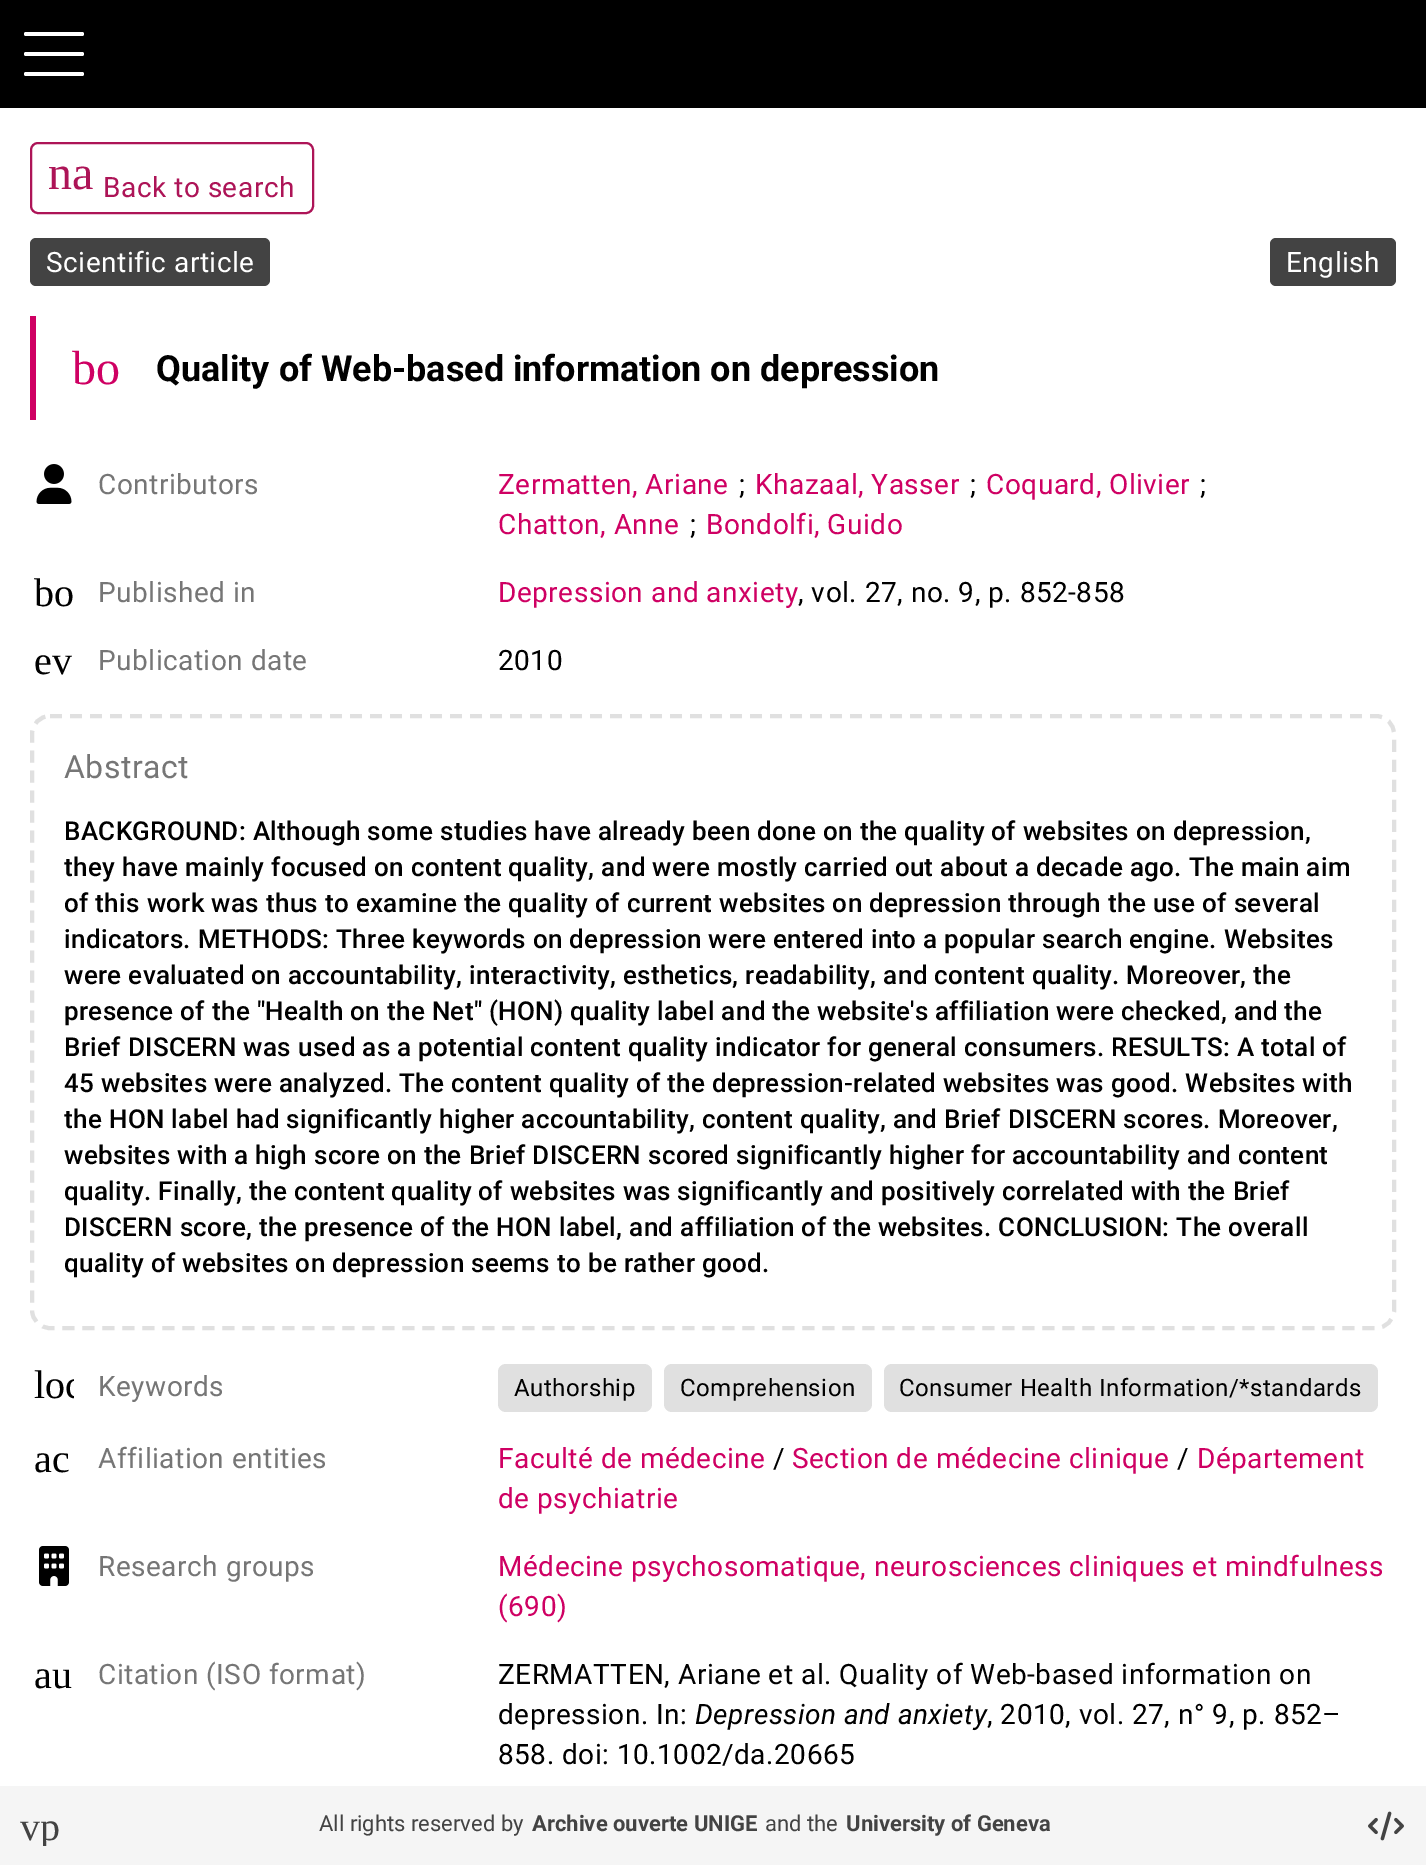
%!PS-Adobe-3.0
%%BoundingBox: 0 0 1426 1865
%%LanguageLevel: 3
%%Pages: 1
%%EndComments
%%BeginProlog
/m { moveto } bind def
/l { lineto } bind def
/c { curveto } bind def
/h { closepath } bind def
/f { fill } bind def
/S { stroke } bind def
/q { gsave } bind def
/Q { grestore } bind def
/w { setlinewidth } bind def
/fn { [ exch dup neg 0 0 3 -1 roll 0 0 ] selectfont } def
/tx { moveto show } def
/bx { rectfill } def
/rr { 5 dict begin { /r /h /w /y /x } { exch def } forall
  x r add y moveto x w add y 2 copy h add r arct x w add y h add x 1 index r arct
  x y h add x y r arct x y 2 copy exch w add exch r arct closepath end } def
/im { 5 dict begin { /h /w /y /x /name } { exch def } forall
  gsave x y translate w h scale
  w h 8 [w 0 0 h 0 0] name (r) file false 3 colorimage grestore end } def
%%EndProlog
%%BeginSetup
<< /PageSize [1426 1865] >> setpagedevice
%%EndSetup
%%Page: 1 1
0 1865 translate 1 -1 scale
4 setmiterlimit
1 setgray
0 0 1426 1865 bx
0 setgray
0 0 1426 108 bx
1 setgray
24 32 60 4 2 rr f
24 52 60 4 2 rr f
24 72 60 4 2 rr f
0.678 0.078 0.341 setrgbcolor
2 w
31 143 282 70 7 rr S
/LiberationSerif-Regular 48 fn
(na) 48 189 tx
/Roboto-Regular 28 fn
103 197 m 0.5 0 (Back to search) ashow
0.263 setgray
30 238 240 48 6 rr f
1 setgray
46 272 m 0.5 0 (Scientific article) ashow
0.263 setgray
1270 238 126 48 6 rr f
1 setgray
1286 272 m 0.5 0 (English) ashow
0.812 0 0.388 setrgbcolor
30 316 6 104 bx
/LiberationSerif-Regular 48 fn
(bo) 72 384 tx
/Roboto-Bold 36 fn
0 setgray
(Quality of Web-based information on depression) 156 381 tx
(image0.raw) 36 464 36 40 im
/Roboto-Regular 28 fn
0.463 setgray
98 494 m 0.5 0 (Contributors) ashow
0.812 0 0.388 setrgbcolor
498 494 m 0.5 0 (Zermatten, Ariane) ashow
0 setgray
739 494 m 0.5 0 (;) ashow
0.812 0 0.388 setrgbcolor
755 494 m 0.5 0 (Khazaal, Yasser) ashow
0 setgray
970 494 m 0.5 0 (;) ashow
0.812 0 0.388 setrgbcolor
986 494 m 0.5 0 (Coquard, Olivier) ashow
0 setgray
1200 494 m 0.5 0 (;) ashow
0.812 0 0.388 setrgbcolor
498 534 m 0.5 0 (Chatton, Anne) ashow
0 setgray
690 534 m 0.5 0 (;) ashow
0.812 0 0.388 setrgbcolor
706 534 m 0.5 0 (Bondolfi, Guido) ashow
/LiberationSerif-Regular 40 fn
0 setgray
(bo) 34 606 tx
/Roboto-Regular 28 fn
0.463 setgray
98 602 m 0.5 0 (Published in) ashow
0.812 0 0.388 setrgbcolor
498 602 m 0.5 0 (Depression and anxiety) ashow
0 setgray
798 602 m 0.5 0 (, vol. 27, no. 9, p. 852-858) ashow
/LiberationSerif-Regular 40 fn
(ev) 34 674 tx
/Roboto-Regular 28 fn
0.463 setgray
98 670 m 0.5 0 (Publication date) ashow
0 setgray
498 670 m 0.5 0 (2010) ashow
0.878 setgray
4 w
[12 8] 0 setdash
50 716 m 1376 716 l 1386 716 1394 724 1394 734 c 1394 1310 l 1394 1320 1386 1328 1376 1328 c 50 1328 l 40 1328 32 1320 32 1310 c 32 734 l 32 724 40 716 50 716 c h S
/Roboto-Regular 32 fn
0.463 setgray
64 778 m 0.5 0 (Abstract) ashow
/Roboto-Medium 26 fn
0 setgray
64 840 m 0.33 0 (BACKGROUND: Although some studies have already been done on the quality of websites on depression,) ashow
64 876 m 0.33 0 (they have mainly focused on content quality, and were mostly carried out about a decade ago. The main aim) ashow
64 912 m 0.33 0 (of this work was thus to examine the quality of current websites on depression through the use of several) ashow
64 948 m 0.33 0 (indicators. METHODS: Three keywords on depression were entered into a popular search engine. Websites) ashow
64 984 m 0.33 0 (were evaluated on accountability, interactivity, esthetics, readability, and content quality. Moreover, the) ashow
64 1020 m 0.33 0 (presence of the "Health on the Net" \(HON\) quality label and the website's affiliation were checked, and the) ashow
64 1056 m 0.33 0 (Brief DISCERN was used as a potential content quality indicator for general consumers. RESULTS: A total of) ashow
64 1092 m 0.33 0 (45 websites were analyzed. The content quality of the depression-related websites was good. Websites with) ashow
64 1128 m 0.33 0 (the HON label had significantly higher accountability, content quality, and Brief DISCERN scores. Moreover,) ashow
64 1164 m 0.33 0 (websites with a high score on the Brief DISCERN scored significantly higher for accountability and content) ashow
64 1200 m 0.33 0 (quality. Finally, the content quality of websites was significantly and positively correlated with the Brief) ashow
64 1236 m 0.33 0 (DISCERN score, the presence of the HON label, and affiliation of the websites. CONCLUSION: The overall) ashow
64 1272 m 0.33 0 (quality of websites on depression seems to be rather good.) ashow
q
34 1364 40 40 rectclip
/LiberationSerif-Regular 40 fn
(loc) 34 1398 tx
Q
/Roboto-Regular 28 fn
0.463 setgray
98 1396 m 0.5 0 (Keywords) ashow
0.878 setgray
498 1364 154 48 8 rr f
/Roboto-Regular 24 fn
0 setgray
514 1396 m 0.5 0 (Authorship) ashow
0.878 setgray
664 1364 208 48 8 rr f
0 setgray
680 1396 m 0.5 0 (Comprehension) ashow
0.878 setgray
884 1364 494 48 8 rr f
0 setgray
899 1396 m 0.5 0 (Consumer Health Information/*standards) ashow
/LiberationSerif-Regular 40 fn
(ac) 34 1472 tx
/Roboto-Regular 28 fn
0.463 setgray
98 1468 m 0.5 0 (Affiliation entities) ashow
0.812 0 0.388 setrgbcolor
498 1468 m 0.5 0 (Faculté de médecine) ashow
0 setgray
773 1468 m 0.5 0 (/) ashow
0.812 0 0.388 setrgbcolor
792 1468 m 0.5 0 (Section de médecine clinique) ashow
0 setgray
1177 1468 m 0.5 0 (/) ashow
0.812 0 0.388 setrgbcolor
1197 1468 m 0.5 0 (Département) ashow
498 1508 m 0.5 0 (de psychiatrie) ashow
(image1.raw) 39 1546 30 40 im
0.463 setgray
98 1576 m 0.5 0 (Research groups) ashow
0.812 0 0.388 setrgbcolor
498 1576 m 0.5 0 (Médecine psychosomatique, neurosciences cliniques et mindfulness) ashow
498 1616 m 0.5 0 (\(690\)) ashow
/LiberationSerif-Regular 40 fn
0 setgray
(au) 34 1688 tx
/Roboto-Regular 28 fn
0.463 setgray
98 1684 m 0.5 0 (Citation \(ISO format\)) ashow
0 setgray
498 1684 m 0.5 0 (ZERMATTEN, Ariane et al. Quality of Web-based information on) ashow
498 1724 m 0.5 0 (depression. In:) ashow
/Roboto-Italic 28 fn
695 1724 m 0.5 0 (Depression and anxiety) ashow
/Roboto-Regular 28 fn
987 1724 m 0.5 0 (, 2010, vol. 27, n° 9, p. 852–) ashow
498 1764 m 0.5 0 (858. doi: 10.1002/da.20665) ashow
0.961 setgray
0 1786 1426 79 bx
q
20 1806 40 40 rectclip
/LiberationSerif-Regular 40 fn
0.263 setgray
(vp) 20 1840 tx
Q
/Roboto-Regular 22 fn
0.263 setgray
(All rights reserved by) 319 1831 tx
/Roboto-Bold 22 fn
(Archive ouverte UNIGE) 532 1831 tx
/Roboto-Regular 22 fn
(and the) 765 1831 tx
/Roboto-Bold 22 fn
(University of Geneva) 846 1831 tx
(image2.raw) 1368 1811 36 30 im
showpage
%%EOF
